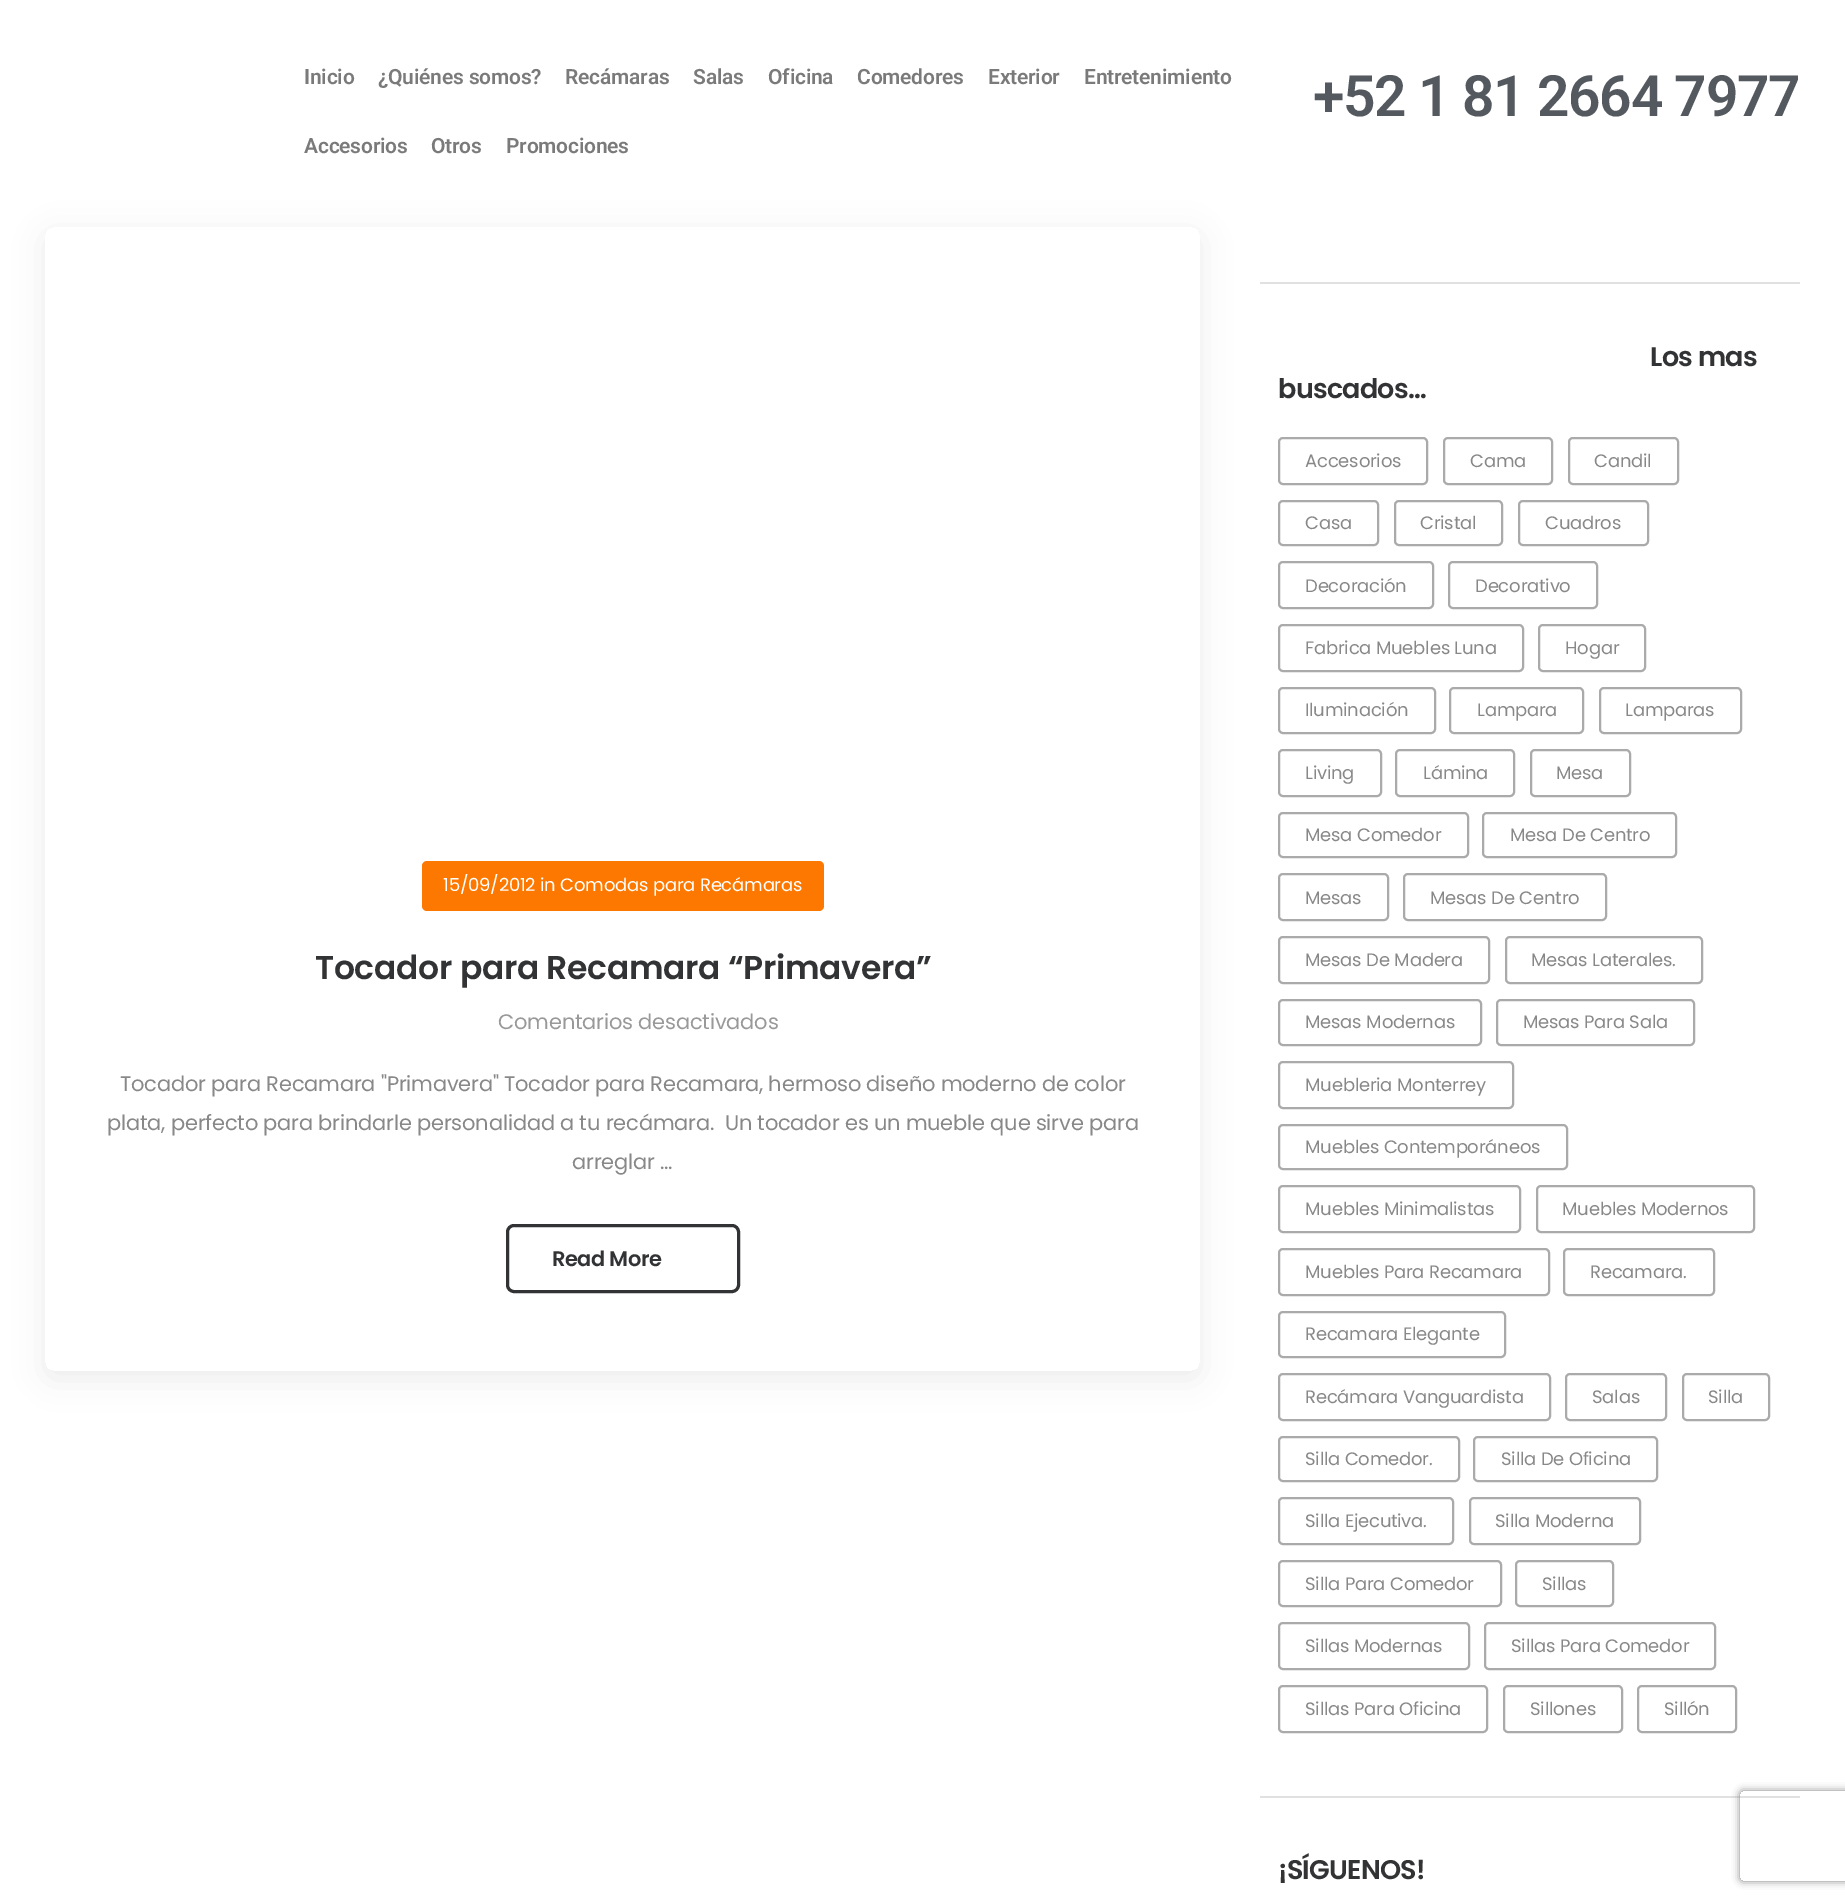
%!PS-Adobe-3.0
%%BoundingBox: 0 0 1845 1901
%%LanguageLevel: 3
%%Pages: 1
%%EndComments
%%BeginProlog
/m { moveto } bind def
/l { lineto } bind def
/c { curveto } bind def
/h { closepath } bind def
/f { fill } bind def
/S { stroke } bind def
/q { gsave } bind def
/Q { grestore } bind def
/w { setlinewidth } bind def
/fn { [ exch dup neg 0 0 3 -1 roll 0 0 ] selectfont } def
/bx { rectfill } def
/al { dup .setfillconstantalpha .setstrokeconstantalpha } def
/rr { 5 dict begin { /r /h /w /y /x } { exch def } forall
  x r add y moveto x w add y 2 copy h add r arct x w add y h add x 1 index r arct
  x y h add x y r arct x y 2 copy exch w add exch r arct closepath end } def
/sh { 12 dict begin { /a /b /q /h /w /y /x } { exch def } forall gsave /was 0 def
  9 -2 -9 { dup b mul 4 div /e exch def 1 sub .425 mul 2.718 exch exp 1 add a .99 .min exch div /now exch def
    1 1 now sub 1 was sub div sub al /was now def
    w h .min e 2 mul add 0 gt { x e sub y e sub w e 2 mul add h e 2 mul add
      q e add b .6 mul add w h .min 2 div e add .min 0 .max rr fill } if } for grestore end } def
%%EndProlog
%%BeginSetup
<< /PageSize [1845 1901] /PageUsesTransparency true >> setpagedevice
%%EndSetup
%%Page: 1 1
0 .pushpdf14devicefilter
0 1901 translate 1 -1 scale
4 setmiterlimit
1 setgray
0 0 1845 1901 bx
/Roboto-SemiBold 21 fn
0.478 setgray
304 84 m -0.2 0 (Inicio) ashow
378 84 m -0.2 0 (¿Quiénes somos?) ashow
565 84 m -0.2 0 (Recámaras) ashow
693 84 m -0.2 0 (Salas) ashow
768 84 m -0.2 0 (Oficina) ashow
857 84 m -0.2 0 (Comedores) ashow
988 84 m -0.2 0 (Exterior) ashow
1084 84 m -0.2 0 (Entretenimiento) ashow
304 153 m -0.2 0 (Accesorios) ashow
431 153 m -0.2 0 (Otros) ashow
506 153 m -0.2 0 (Promociones) ashow
/Roboto-SemiBold 57 fn
0.329 0.349 0.373 setrgbcolor
1313 116 m -1.4 0 (+52 1 81 2664 7977) ashow
q
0 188 m 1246 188 l 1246 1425 l 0 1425 l h 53 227 m 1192 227 l 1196.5 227 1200 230.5 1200 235 c 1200 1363 l 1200 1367.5 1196.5 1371 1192 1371 c 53 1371 l 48.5 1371 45 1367.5 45 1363 c 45 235 l 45 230.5 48.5 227 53 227 c h eoclip newpath
0 setgray
45 234 1155 1145 8 15 0.07 sh
Q
0.992 0.471 0 setrgbcolor
422 861 402 50 5 rr f
/Poppins-Regular 18 fn
1 setgray
443 891 m -0.2 0 (15/09/2012 in Comodas para Recámaras) ashow
/Poppins-SemiBold 33 fn
0.196 0.2 0.204 setrgbcolor
315 979 m -0.3 0 (Tocador para Recamara “Primavera”) ashow
/Poppins-Regular 21 fn
0.6 setgray
498 1029 m -0.2 0 (Comentarios desactivados) ashow
0.533 setgray
120 1091 m -0.2 0 (Tocador para Recamara "Primavera" Tocador para Recamara, hermoso diseño moderno de color) ashow
107 1130 m -0.2 0 (plata, perfecto para brindarle personalidad a tu recámara.  Un tocador es un mueble que sirve para) ashow
572 1169 m -0.2 0 (arreglar ...) ashow
0.196 0.2 0.204 setrgbcolor
3 w
507.5 1225.5 231 66 6.5 rr S
/Poppins-SemiBold 21 fn
552 1266 m -0.5 0 (Read More) ashow
0.882 setgray
1260 282 540 2 bx
/Poppins-SemiBold 27 fn
0.196 0.2 0.204 setrgbcolor
1650 366 m -0.75 0 (Los mas) ashow
1278 398 m -0.75 0 (buscados…) ashow
0.667 setgray
2 w
1279 438 148 46 4 rr S
/Poppins-Regular 18 fn
0.533 setgray
1305 467 m -0.2 0 (Accesorios) ashow
0.667 setgray
1444 438 108 46 4 rr S
0.533 setgray
1470 467 m -0.2 0 (Cama) ashow
0.667 setgray
1569 438 109 46 4 rr S
0.533 setgray
1594 467 m -0.2 0 (Candil) ashow
0.667 setgray
1279 501 99 44 4 rr S
0.533 setgray
1305 529 m -0.2 0 (Casa) ashow
0.667 setgray
1395 501 107 44 4 rr S
0.533 setgray
1420 529 m -0.2 0 (Cristal) ashow
0.667 setgray
1519 501 129 44 4 rr S
0.533 setgray
1545 529 m -0.2 0 (Cuadros) ashow
0.667 setgray
1279 562 154 46 4 rr S
0.533 setgray
1305 592 m -0.2 0 (Decoración) ashow
0.667 setgray
1449 562 148 46 4 rr S
0.533 setgray
1475 592 m -0.2 0 (Decorativo) ashow
0.667 setgray
1279 625 244 46 4 rr S
0.533 setgray
1305 654 m -0.2 0 (Fabrica Muebles Luna) ashow
0.667 setgray
1539 625 106 46 4 rr S
0.533 setgray
1565 654 m -0.2 0 (Hogar) ashow
0.667 setgray
1279 688 156 45 4 rr S
0.533 setgray
1305 716 m -0.2 0 (Iluminación) ashow
0.667 setgray
1450 688 133 45 4 rr S
0.533 setgray
1477 716 m -0.2 0 (Lampara) ashow
0.667 setgray
1600 688 141 45 4 rr S
0.533 setgray
1625 716 m -0.2 0 (Lamparas) ashow
0.667 setgray
1279 750 102 46 4 rr S
0.533 setgray
1305 779 m -0.2 0 (Living) ashow
0.667 setgray
1396 750 118 46 4 rr S
0.533 setgray
1423 779 m -0.2 0 (Lámina) ashow
0.667 setgray
1531 750 99 46 4 rr S
0.533 setgray
1556 779 m -0.2 0 (Mesa) ashow
0.667 setgray
1279 813 189 44 4 rr S
0.533 setgray
1305 841 m -0.2 0 (Mesa Comedor) ashow
0.667 setgray
1483 813 193 44 4 rr S
0.533 setgray
1510 841 m -0.2 0 (Mesa De Centro) ashow
0.667 setgray
1279 874 109 46 4 rr S
0.533 setgray
1305 904 m -0.2 0 (Mesas) ashow
0.667 setgray
1404 874 202 46 4 rr S
0.533 setgray
1430 904 m -0.2 0 (Mesas De Centro) ashow
0.667 setgray
1279 937 210 46 4 rr S
0.533 setgray
1305 966 m -0.2 0 (Mesas De Madera) ashow
0.667 setgray
1506 937 196 46 4 rr S
0.533 setgray
1531 966 m -0.2 0 (Mesas Laterales.) ashow
0.667 setgray
1279 1000 202 45 4 rr S
0.533 setgray
1305 1028 m -0.2 0 (Mesas Modernas) ashow
0.667 setgray
1497 1000 197 45 4 rr S
0.533 setgray
1523 1028 m -0.2 0 (Mesas Para Sala) ashow
0.667 setgray
1279 1062 234 46 4 rr S
0.533 setgray
1305 1091 m -0.2 0 (Muebleria Monterrey) ashow
0.667 setgray
1279 1125 288 44 4 rr S
0.533 setgray
1305 1153 m -0.2 0 (Muebles Contemporáneos) ashow
0.667 setgray
1279 1186 241 46 4 rr S
0.533 setgray
1305 1215 m -0.2 0 (Muebles Minimalistas) ashow
0.667 setgray
1537 1186 217 46 4 rr S
0.533 setgray
1562 1215 m -0.2 0 (Muebles Modernos) ashow
0.667 setgray
1279 1249 270 46 4 rr S
0.533 setgray
1305 1278 m -0.2 0 (Muebles Para Recamara) ashow
0.667 setgray
1564 1249 150 46 4 rr S
0.533 setgray
1590 1278 m -0.2 0 (Recamara.) ashow
0.667 setgray
1279 1312 226 45 4 rr S
0.533 setgray
1305 1340 m -0.2 0 (Recamara Elegante) ashow
0.667 setgray
1279 1374 271 46 4 rr S
0.533 setgray
1305 1403 m -0.2 0 (Recámara Vanguardista) ashow
0.667 setgray
1566 1374 100 46 4 rr S
0.533 setgray
1592 1403 m -0.2 0 (Salas) ashow
0.667 setgray
1683 1374 86 46 4 rr S
0.533 setgray
1708 1403 m -0.2 0 (Silla) ashow
0.667 setgray
1279 1437 180 44 4 rr S
0.533 setgray
1305 1465 m -0.2 0 (Silla Comedor.) ashow
0.667 setgray
1474 1437 183 44 4 rr S
0.533 setgray
1501 1465 m -0.2 0 (Silla De Oficina) ashow
0.667 setgray
1279 1498 174 46 4 rr S
0.533 setgray
1305 1527 m -0.2 0 (Silla Ejecutiva.) ashow
0.667 setgray
1470 1498 170 46 4 rr S
0.533 setgray
1495 1527 m -0.2 0 (Silla Moderna) ashow
0.667 setgray
1279 1561 222 45 4 rr S
0.533 setgray
1305 1590 m -0.2 0 (Silla Para Comedor) ashow
0.667 setgray
1516 1561 97 45 4 rr S
0.533 setgray
1542 1590 m -0.2 0 (Sillas) ashow
0.667 setgray
1279 1623 190 46 4 rr S
0.533 setgray
1305 1652 m -0.2 0 (Sillas Modernas) ashow
0.667 setgray
1485 1623 230 46 4 rr S
0.533 setgray
1511 1652 m -0.2 0 (Sillas Para Comedor) ashow
0.667 setgray
1279 1686 208 46 4 rr S
0.533 setgray
1305 1715 m -0.2 0 (Sillas Para Oficina) ashow
0.667 setgray
1504 1686 118 46 4 rr S
0.533 setgray
1530 1715 m -0.2 0 (Sillones) ashow
0.667 setgray
1638 1686 98 46 4 rr S
0.533 setgray
1664 1715 m -0.2 0 (Sillón) ashow
0.882 setgray
1260 1796 540 2 bx
/Poppins-SemiBold 27 fn
0.196 0.2 0.204 setrgbcolor
1278 1879 m -0.75 0 (¡SÍGUENOS!) ashow
q
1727 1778 m 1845 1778 l 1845 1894 l 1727 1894 l h 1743 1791 m 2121 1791 l 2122.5 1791 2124 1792.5 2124 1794 c 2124 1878 l 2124 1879.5 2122.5 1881 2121 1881 c 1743 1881 l 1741.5 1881 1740 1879.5 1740 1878 c 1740 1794 l 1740 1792.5 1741.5 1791 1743 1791 c h eoclip newpath
0.502 setgray
1740 1791 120 90 3 4 1 sh
Q
.poppdf14devicefilter showpage
%%EOF
